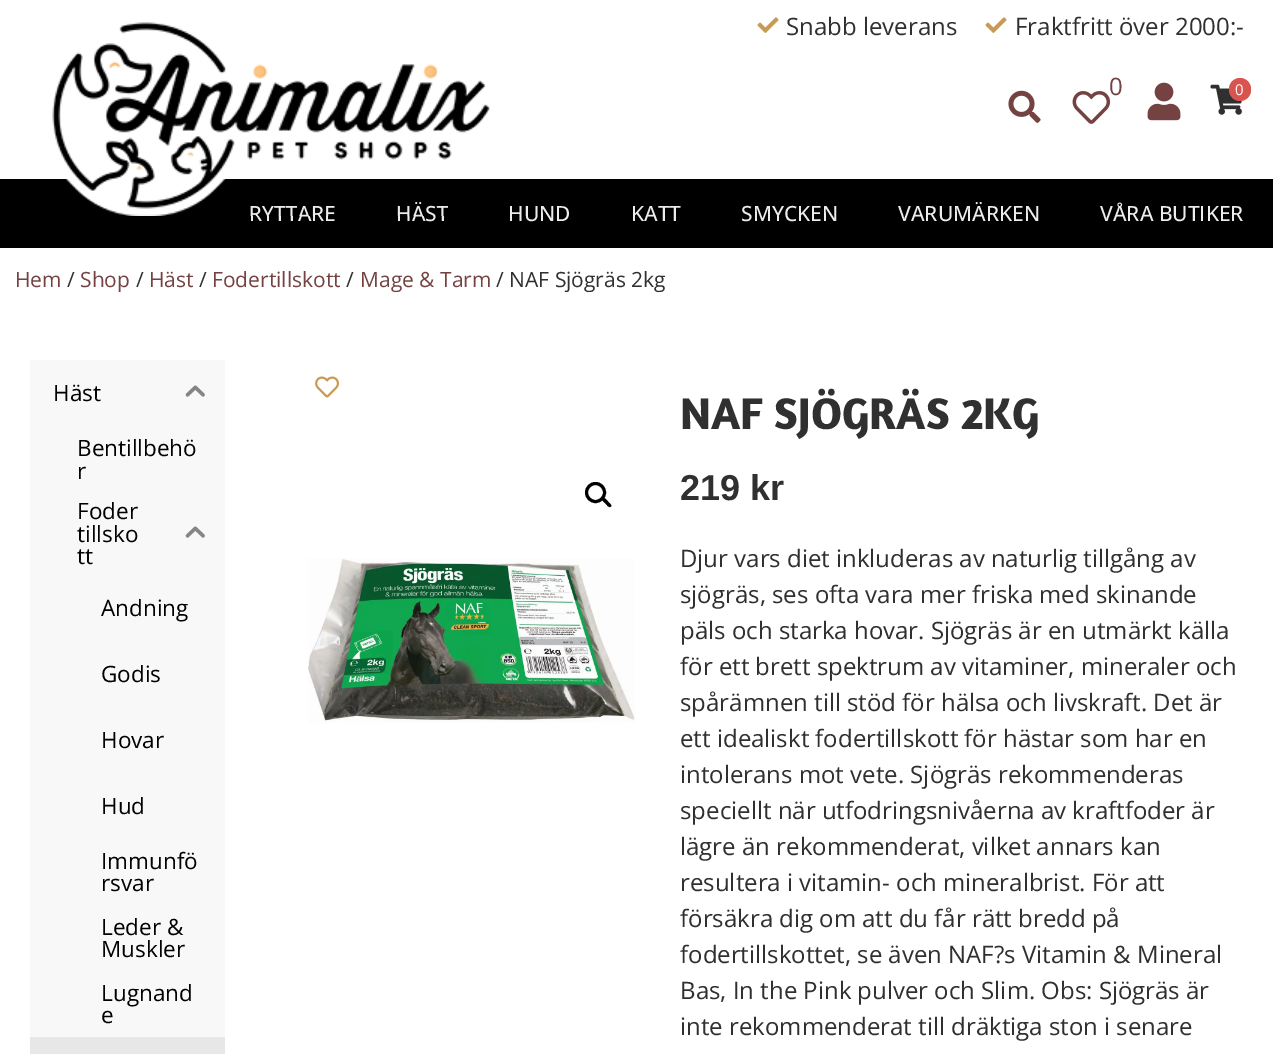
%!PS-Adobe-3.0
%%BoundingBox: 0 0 1273 1054
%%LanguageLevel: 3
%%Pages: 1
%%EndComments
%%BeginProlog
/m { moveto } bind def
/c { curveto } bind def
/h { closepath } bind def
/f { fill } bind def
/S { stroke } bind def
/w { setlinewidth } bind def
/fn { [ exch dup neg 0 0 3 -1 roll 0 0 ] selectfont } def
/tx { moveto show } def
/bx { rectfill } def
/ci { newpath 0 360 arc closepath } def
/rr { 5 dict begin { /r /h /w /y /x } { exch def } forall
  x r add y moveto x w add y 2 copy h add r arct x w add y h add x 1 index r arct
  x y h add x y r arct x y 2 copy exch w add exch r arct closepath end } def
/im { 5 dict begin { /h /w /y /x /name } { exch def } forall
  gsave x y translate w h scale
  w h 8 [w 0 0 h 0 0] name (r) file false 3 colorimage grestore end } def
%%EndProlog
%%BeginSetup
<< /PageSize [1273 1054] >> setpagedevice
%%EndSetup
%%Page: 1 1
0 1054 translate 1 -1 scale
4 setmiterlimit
1 setgray
0 0 1273 1054 bx
0 setgray
0 179 1273 69 bx
/OpenSans-Medium 21 fn
0.925 setgray
(RYTTARE) 249 221 tx
(HÄST) 396 221 tx
(image0.raw) 52 22 438 194 im
(image1.raw) 757 17 22 16 im
/OpenSans-Regular 24 fn
0.188 setgray
(Snabb leverans) 786 35 tx
(image1.raw) 985 17 22 16 im
(Fraktfritt över 2000:-) 1015 35 tx
(image2.raw) 1008 90 33 33 im
(image3.raw) 1072 91 39 33 im
0.459 0.259 0.259 setrgbcolor
(0) 1109 95 tx
(image4.raw) 1147 82 34 39 im
(image5.raw) 1210 84 32 31 im
0.851 0.325 0.31 setrgbcolor
1229 78 22 23 11 rr f
/OpenSans-Regular 15 fn
1 setgray
(0) 1235 95 tx
/OpenSans-Medium 21 fn
0.925 setgray
(HUND) 508 221 tx
(KATT) 631 221 tx
(SMYCKEN) 741 221 tx
(VARUMÄRKEN) 898 221 tx
(VÅRA BUTIKER) 1100 221 tx
/OpenSans-Regular 21 fn
0.459 0.259 0.259 setrgbcolor
(Hem) 15 287 tx
0.188 setgray
(/) 67 287 tx
0.459 0.259 0.259 setrgbcolor
(Shop) 80 287 tx
0.188 setgray
(/) 136 287 tx
0.459 0.259 0.259 setrgbcolor
(Häst) 149 287 tx
0.188 setgray
(/) 199 287 tx
0.459 0.259 0.259 setrgbcolor
(Fodertillskott) 212 287 tx
0.188 setgray
(/) 346 287 tx
0.459 0.259 0.259 setrgbcolor
(Mage & Tarm) 360 287 tx
0.188 setgray
(/ NAF Sjögräs 2kg) 496 287 tx
0.973 setgray
30 360 195 677 bx
/OpenSans-Regular 22.5 fn
0 setgray
(Häst) 53 401 tx
(image6.raw) 185 385 20 12 im
(Bentillbehö) 77 456 tx
(r) 77 479 tx
(Foder) 77 519 tx
(tillsko) 77 542 tx
(tt) 77 564 tx
(image6.raw) 185 526 20 12 im
(Andning) 101 616 tx
(Godis) 101 682 tx
(Hovar) 101 748 tx
(Hud) 101 814 tx
(Immunfö) 101 869 tx
(rsvar) 101 891 tx
(Leder &) 101 935 tx
(Muskler) 101 957 tx
(Lugnand) 101 1001 tx
(e) 101 1023 tx
0.906 setgray
30 1037 195 17 bx
(image7.raw) 315 376 24 22 im
0 setgray
3 w
595.5 492.5 9 ci S
602.5 498.5 m 604 496.5 607 500.5 608 501.5 c 608.5 502.5 612.5 505 611 506.5 c 609 508.5 606.5 504.5 605.5 503.5 c 604.5 502.5 601 500 602.5 498.5 c h f
(image8.raw) 308 558 327 165 im
/Amaranth-Bold 45 fn
0.188 setgray
(NAF SJÖGRÄS 2KG) 680 429 tx
/LiberationSans-Bold 36 fn
(219 kr) 680 500 tx
/OpenSans-Regular 24 fn
(Djur vars diet inkluderas av naturlig tillgång av) 680 567 tx
(sjögräs, ses ofta vara mer friska med skinande) 680 603 tx
(päls och starka hovar. Sjögräs är en utmärkt källa) 680 639 tx
(för ett brett spektrum av vitaminer, mineraler och) 680 675 tx
(spårämnen till stöd för hälsa och livskraft. Det är) 680 711 tx
(ett idealiskt fodertillskott för hästar som har en) 680 747 tx
(intolerans mot vete. Sjögräs rekommenderas) 680 783 tx
(speciellt när utfodringsnivåerna av kraftfoder är) 680 819 tx
(lägre än rekommenderat, vilket annars kan) 680 855 tx
(resultera i vitamin- och mineralbrist. För att) 680 891 tx
(försäkra dig om att du får rätt bredd på) 680 927 tx
(fodertillskottet, se även NAF?s Vitamin & Mineral) 680 963 tx
(Bas, In the Pink pulver och Slim. Obs: Sjögräs är) 680 999 tx
(inte rekommenderat till dräktiga ston i senare) 680 1035 tx
showpage
%%EOF
